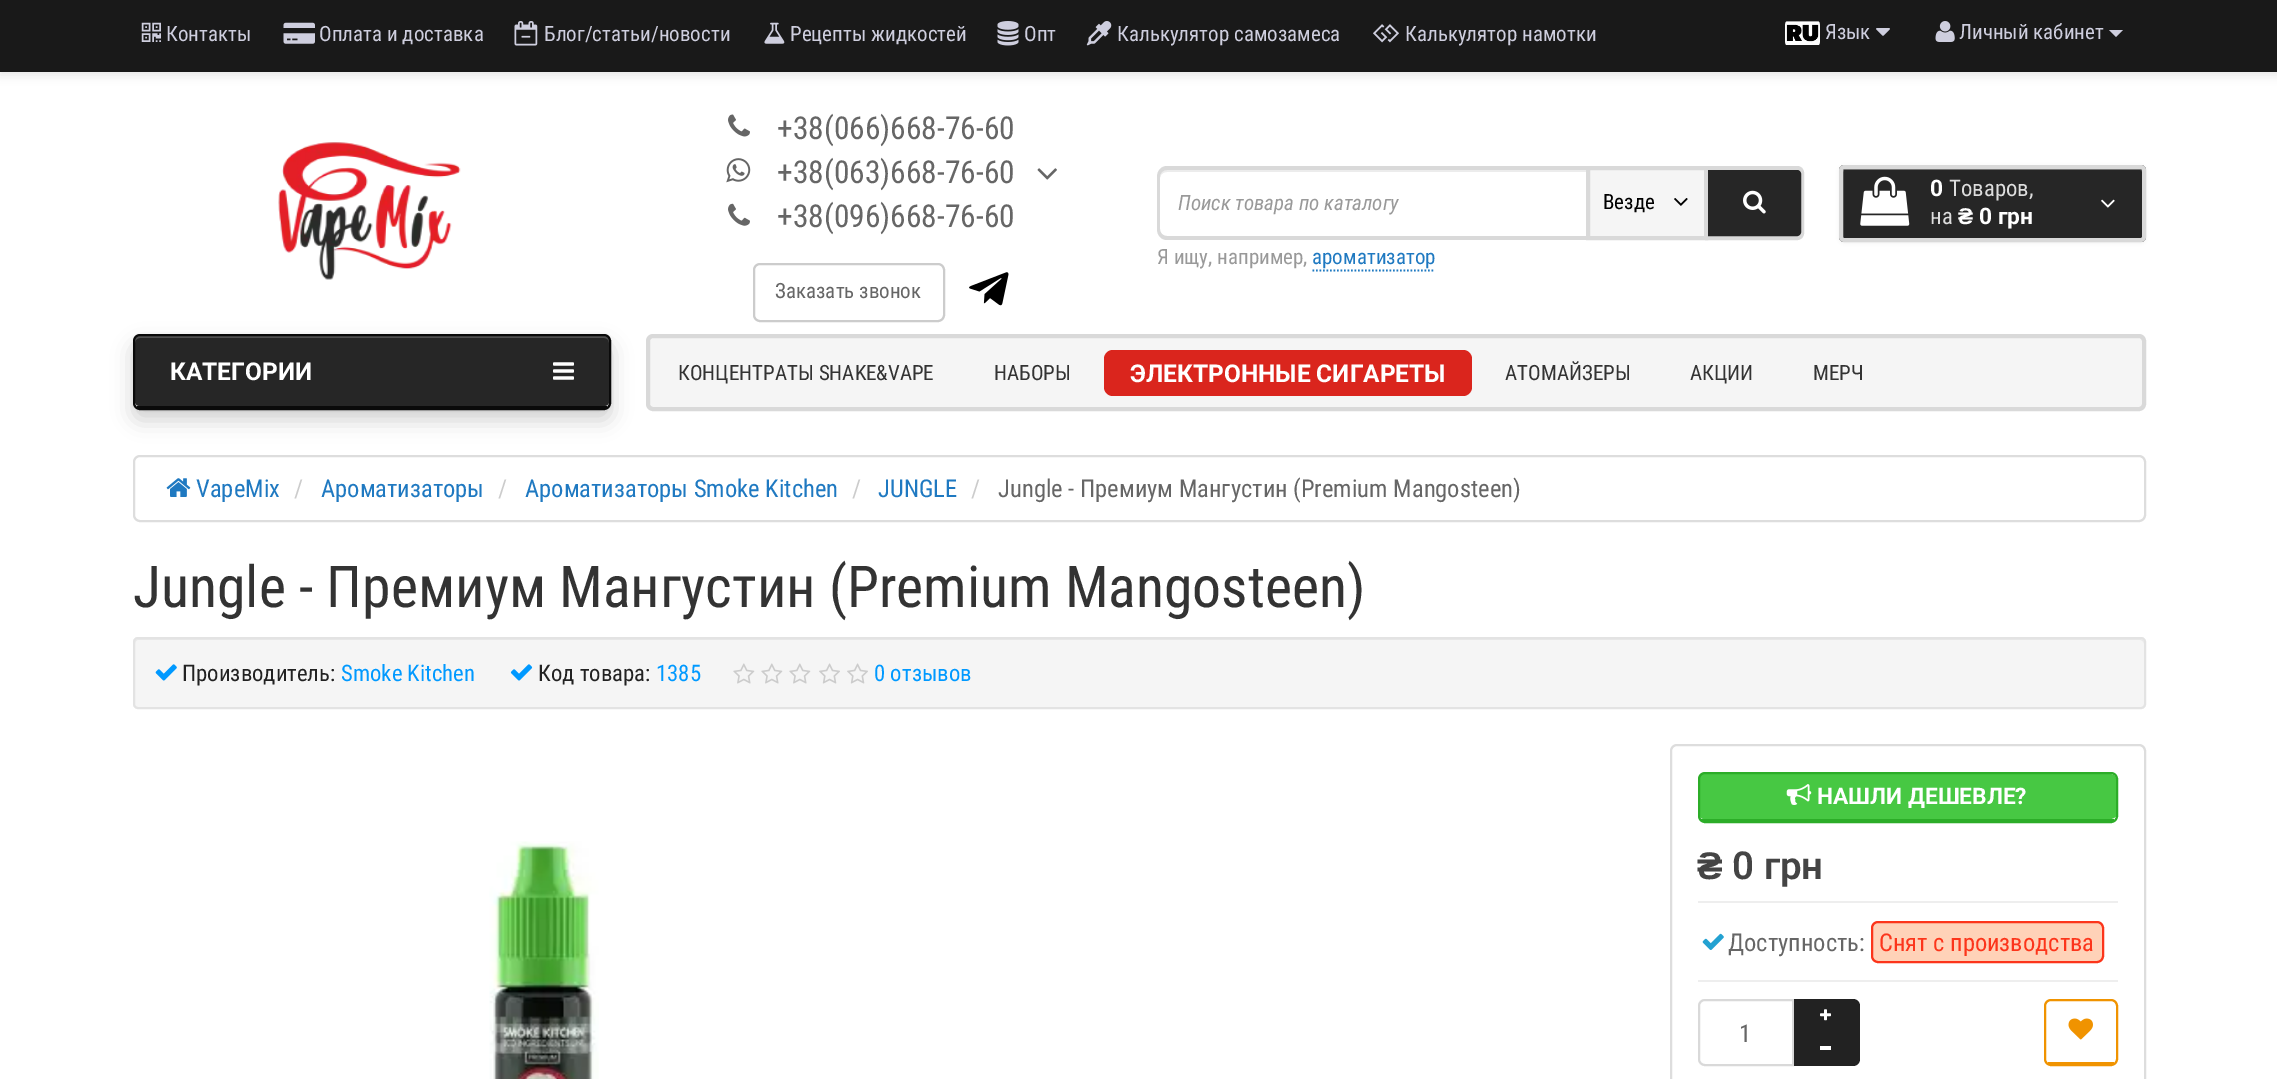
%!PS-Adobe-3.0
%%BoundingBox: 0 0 2277 1079
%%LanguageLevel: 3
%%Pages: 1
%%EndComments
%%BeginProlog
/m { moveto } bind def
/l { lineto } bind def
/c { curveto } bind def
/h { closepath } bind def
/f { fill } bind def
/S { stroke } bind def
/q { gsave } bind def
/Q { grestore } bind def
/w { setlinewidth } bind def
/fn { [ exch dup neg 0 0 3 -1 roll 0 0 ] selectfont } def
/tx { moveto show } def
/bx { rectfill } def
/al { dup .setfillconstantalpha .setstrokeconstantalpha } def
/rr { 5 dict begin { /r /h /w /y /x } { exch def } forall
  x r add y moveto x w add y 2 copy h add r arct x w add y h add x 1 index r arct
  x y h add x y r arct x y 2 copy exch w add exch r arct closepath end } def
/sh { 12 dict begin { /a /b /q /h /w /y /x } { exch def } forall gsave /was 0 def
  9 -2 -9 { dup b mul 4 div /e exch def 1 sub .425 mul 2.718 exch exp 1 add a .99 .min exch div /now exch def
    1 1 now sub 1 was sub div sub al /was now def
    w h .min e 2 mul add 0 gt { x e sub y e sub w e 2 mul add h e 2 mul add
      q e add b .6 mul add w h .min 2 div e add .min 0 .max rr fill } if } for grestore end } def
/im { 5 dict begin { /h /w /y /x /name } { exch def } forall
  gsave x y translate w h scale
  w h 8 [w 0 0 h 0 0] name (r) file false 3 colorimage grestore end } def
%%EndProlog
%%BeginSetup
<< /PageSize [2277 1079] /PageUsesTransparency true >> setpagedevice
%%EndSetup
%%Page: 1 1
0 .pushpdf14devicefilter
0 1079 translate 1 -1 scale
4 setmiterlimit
1 setgray
0 0 2277 1079 bx
0 setgray
0 4 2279 71 0 5 0.1 sh
0.098 setgray
0 0 2277 72 bx
(image0.raw) 141 22 20 20 im
/RobotoCondensed-Regular 21 fn
0.808 0.808 0.871 setrgbcolor
(Контакты) 166 41 tx
(image1.raw) 283 22 32 22 im
(Оплата и доставка) 319 41 tx
(image2.raw) 514 21 24 25 im
(Блог/статьи/новости) 544 41 tx
(image3.raw) 764 22 21 22 im
(Рецепты жидкостей) 790 41 tx
(image4.raw) 997 21 22 25 im
(Опт) 1024 41 tx
(image5.raw) 1086 21 26 25 im
(Калькулятор самозамеса) 1117 41 tx
(image6.raw) 1373 24 26 19 im
(Калькулятор намотки) 1405 41 tx
(image7.raw) 1785 21 35 24 im
(Язык) 1825 39 tx
(image8.raw) 1876 28 14 8 im
(image9.raw) 1935 21 20 21 im
(Личный кабинет) 1959 39 tx
2109 30 m 2123 30 l 2116 37 l h f
(image10.raw) 278 142 183 138 im
(image11.raw) 728 114 22 23 im
/RobotoCondensed-Regular 31.5 fn
0.4 setgray
(+38\(066\)668-76-60) 777 139 tx
(image12.raw) 726 158 25 25 im
(+38\(063\)668-76-60) 777 183 tx
(image13.raw) 728 203 22 23 im
(+38\(096\)668-76-60) 777 227 tx
(image14.raw) 1037 168 20 12 im
0.8 setgray
2 w
754 264 190 57 6 rr S
/RobotoCondensed-Regular 21 fn
0.4 setgray
(Заказать звонок) 775 298 tx
(image15.raw) 969 272 40 34 im
0.925 setgray
1167 172 m 1586 172 l 1586 170 l 1167 170 l 1162 170 1160 174 1160 178 c 1160 175 1163 172 1167 172 c h f
0.851 setgray
1167 166 m 1586 166 l 1586 240 l 1167 240 l 1161 240 1157 235 1157 229 c 1157 177 l 1157 171 1161 166 1167 166 c h 1167 170 m 1586 170 l 1586 236 l 1167 236 l 1163 236 1160 233 1160 229 c 1160 177 l 1160 173 1163 170 1167 170 c h eofill
/RobotoCondensed-Italic 21 fn
0.6 setgray
(Поиск товара по каталогу) 1178 210 tx
0.961 setgray
1588 168 m 1706 168 l 1706 238 l 1588 238 l h q f Q
0.851 setgray
4 w
S
/RobotoCondensed-Regular 21 fn
0 setgray
(Везде) 1603 209 tx
(image16.raw) 1674 198 14 8 im
0.851 setgray
1707 168 m 1797 168 l 1800 168 1802 170 1802 173 c 1802 233 l 1802 236 1800 238 1797 238 c 1707 238 l h S
0.149 setgray
1710 172 m 1797 172 l 1798 172 1799 173 1799 174 c 1799 232 l 1799 233 1798 234 1797 234 c 1710 234 l h q f Q
S
(image17.raw) 1743 190 23 24 im
0.6 setgray
(Я ищу, например,) 1157 264 tx
0.122 0.475 0.757 setrgbcolor
(ароматизатор) 1312 264 tx
1.8 w
[1.75 1.75] 0 setdash
1312.5 270.5 m 1435 270.5 l S
0 setgray
1839 166 307 77 5 2 0.05 sh
0.149 setgray
1839 165 307 77 5 rr f
0.318 setgray
1844 170 m 2140 170 l 2141 170 2142 171 2142 172 c 2142 170 l 2142 169 2141 168 2140 168 c 1845 168 l 1844 168 1843 169 1843 170 c 1843 172 l h f
0.851 setgray
4 w
[] 0 setdash
1841 167 303 73 3 rr S
(image18.raw) 1860 176 50 50 im
/Roboto-Bold 22.75 fn
1 setgray
(0) 1930 196 tx
/RobotoCondensed-Regular 22.75 fn
0.867 setgray
(Tоваров,) 1949 196 tx
(на) 1930 224 tx
/LiberationSans-Bold 22.75 fn
1 setgray
(₴) 1958 224 tx
/Roboto-Bold 22.75 fn
(0 грн) 1979 224 tx
(image19.raw) 2101 199 14 9 im
0 setgray
133 345 478 75 7 10.5 0.18 sh
133 336 478 75 7 2 0.05 sh
0.149 setgray
140 336 m 604 336 l 607 336 609 338 609 341 c 609 402 l 609 404 607 406 604 406 c 140 406 l 137 406 135 404 135 402 c 135 341 l 135 338 137 336 140 336 c h f
0.2 al
1 setgray
140 338 m 604 338 l 607 338 609 340 609 343 c 609 341 l 609 338 607 336 604 336 c 140 336 l 137 336 135 338 135 341 c 135 404 l 135 343 l 135 340 137 338 140 338 c h f
1 al
0.039 setgray
2 w
134 335 476 74 6 rr S
137 406 470 2 bx
/Roboto-Bold 24.5 fn
1 setgray
(КАТЕГОРИИ) 170 380 tx
(image20.raw) 553 362 21 18 im
0.961 setgray
648 336 1496 73 5 rr q f Q
0.851 setgray
4 w
S
/RobotoCondensed-Regular 21 fn
0.2 setgray
(КОНЦЕНТРАТЫ SHAKE&VAPE) 678 380 tx
(НАБОРЫ) 994 380 tx
0.855 0.145 0.114 setrgbcolor
1104 350 368 46 9 rr f
/Roboto-Bold 24.5 fn
1 setgray
(ЭЛЕКТРОННЫЕ СИГАРЕТЫ) 1130 382 tx
/RobotoCondensed-Regular 21 fn
0.2 setgray
(АТОМАЙЗЕРЫ) 1505 380 tx
(АКЦИИ) 1690 380 tx
(МЕРЧ) 1813 380 tx
0.867 setgray
2 w
134 456 2011 65 6 rr S
(image21.raw) 166 478 25 19 im
/RobotoCondensed-Regular 24.5 fn
0.122 0.475 0.757 setrgbcolor
(VapeMix) 196 497 tx
0.8 setgray
(/) 294 497 tx
0.122 0.475 0.757 setrgbcolor
(Ароматизаторы) 321 497 tx
0.8 setgray
(/) 498 497 tx
0.122 0.475 0.757 setrgbcolor
(Ароматизаторы Smoke Kitchen) 525 497 tx
0.8 setgray
(/) 852 497 tx
0.122 0.475 0.757 setrgbcolor
(JUNGLE) 878 497 tx
0.8 setgray
(/) 971 497 tx
0.4 setgray
(Jungle - Премиум Мангустин \(Premium Mangosteen\)) 998 497 tx
/RobotoCondensed-Regular 57.75 fn
0.2 setgray
(Jungle - Премиум Мангустин \(Premium Mangosteen\)) 133 607 tx
0.961 setgray
133 637 2013 72 5 rr f
0.914 setgray
138 640 m 2140 640 l 2142 640 2144 642 2144 644 c 2144 641 2143 639 2140 639 c 139 639 l 137 639 135 640 135 642 c 135 644 l 135 642 136 640 138 640 c h f
0.89 setgray
134 638 2011 70 4 rr S
(image22.raw) 155 664 22 17 im
/RobotoCondensed-Regular 22.75 fn
0.133 setgray
(Производитель:) 182 681 tx
0 0.6 1 setrgbcolor
(Smoke Kitchen) 341 681 tx
(image23.raw) 510 664 23 17 im
0.133 setgray
(Код товара:) 538 681 tx
0 0.6 1 setrgbcolor
(1385) 656 681 tx
(image24.raw) 733 663 22 21 im
(image24.raw) 761 663 22 21 im
(image24.raw) 789 663 22 21 im
(image25.raw) 819 663 21 21 im
(image25.raw) 847 663 21 21 im
(0 отзывов) 874 681 tx
(image26.raw) 489 841 110 238 im
0.867 setgray
1671 745 474 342 6 rr S
0.278 0.784 0.263 setrgbcolor
1704 774 m 2110 774 l 2113 774 2116 776 2116 779 c 2116 816 l 2116 817 2113 819 2110 819 c 1704 819 l 1702 819 1699 817 1699 816 c 1699 779 l 1699 776 1702 774 1704 774 c h f
0.173 0.678 0.157 setrgbcolor
1699 773 418 49 6 rr S
1701 819 413 2 bx
(image27.raw) 1786 784 26 21 im
/Roboto-Bold 22.75 fn
1 setgray
(НАШЛИ ДЕШЕВЛЕ?) 1817 804 tx
/LiberationSans-Bold 38.5 fn
0.267 setgray
(₴) 1697 879 tx
/Roboto-SemiBold 38.5 fn
(0 грн) 1732 879 tx
0.933 setgray
1698 901 420 2 bx
(image28.raw) 1702 933 22 17 im
/RobotoCondensed-Regular 24.5 fn
0.4 setgray
(Доступность:) 1728 951 tx
1 0.824 0.722 setrgbcolor
1872 922 231 40 6 rr q f Q
0.988 0.208 0.106 setrgbcolor
S
(Снят с производства) 1879 951 tx
0.933 setgray
1698 980 420 2 bx
0.851 setgray
1705 1000 m 1793 1000 l 1793 1065 l 1705 1065 l 1701.5 1065 1699 1062.5 1699 1059 c 1699 1006 l 1699 1002.5 1701.5 1000 1705 1000 c h S
0.4 setgray
(1) 1739 1042 tx
0.133 setgray
1794 999 m 1853 999 l 1857 999 1860 1002 1860 1006 c 1860 1033 l 1794 1033 l h f
(image29.raw) 1820 1009 11 12 im
1794 1033 m 1860 1033 l 1860 1059 l 1860 1063 1857 1066 1853 1066 c 1794 1066 l h f
1 setgray
1820 1046 11 4 bx
0.941 0.576 0 setrgbcolor
2045 1000 72 65 6 rr S
2048 1062 66 2 bx
(image30.raw) 2068 1018 25 22 im
.poppdf14devicefilter showpage
%%EOF
